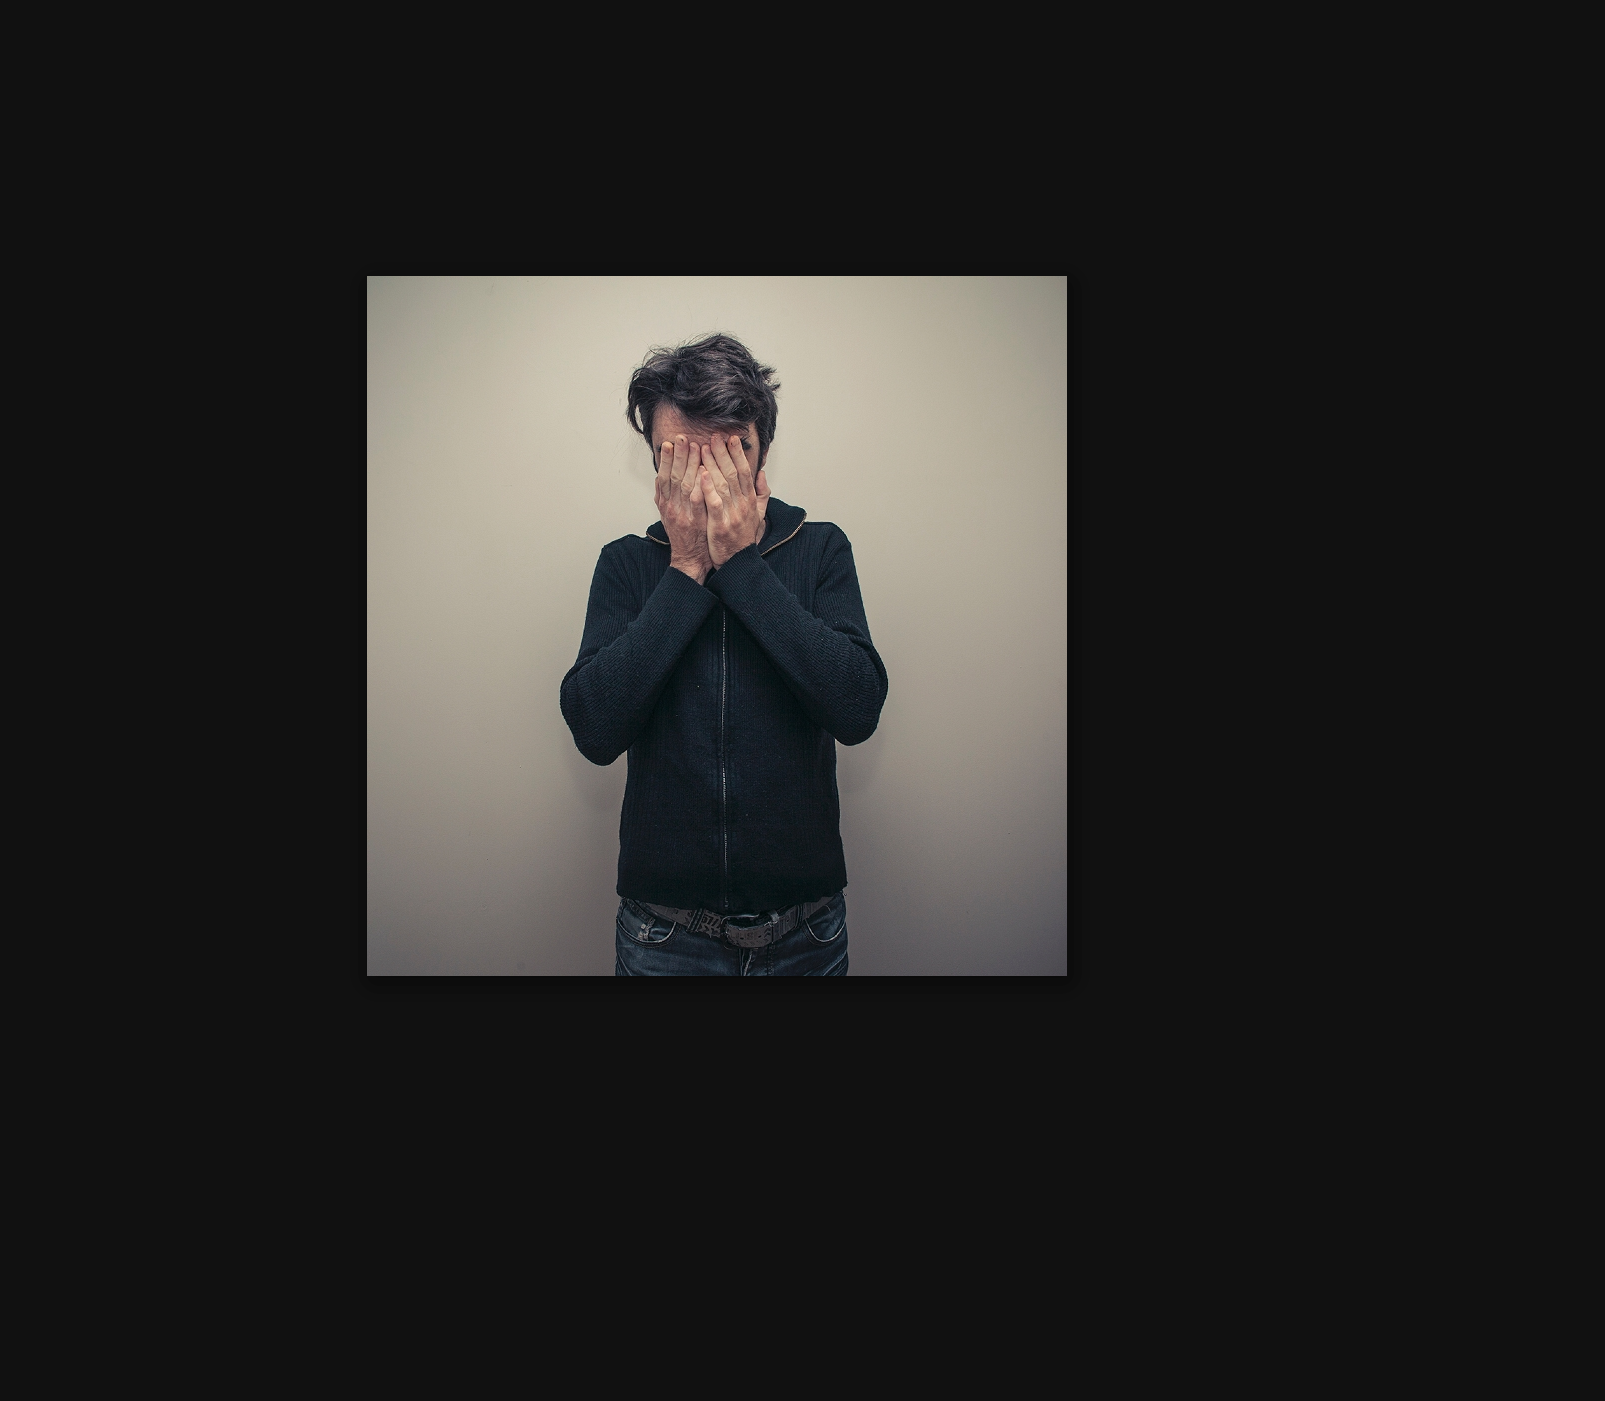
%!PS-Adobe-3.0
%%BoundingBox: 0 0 1605 1401
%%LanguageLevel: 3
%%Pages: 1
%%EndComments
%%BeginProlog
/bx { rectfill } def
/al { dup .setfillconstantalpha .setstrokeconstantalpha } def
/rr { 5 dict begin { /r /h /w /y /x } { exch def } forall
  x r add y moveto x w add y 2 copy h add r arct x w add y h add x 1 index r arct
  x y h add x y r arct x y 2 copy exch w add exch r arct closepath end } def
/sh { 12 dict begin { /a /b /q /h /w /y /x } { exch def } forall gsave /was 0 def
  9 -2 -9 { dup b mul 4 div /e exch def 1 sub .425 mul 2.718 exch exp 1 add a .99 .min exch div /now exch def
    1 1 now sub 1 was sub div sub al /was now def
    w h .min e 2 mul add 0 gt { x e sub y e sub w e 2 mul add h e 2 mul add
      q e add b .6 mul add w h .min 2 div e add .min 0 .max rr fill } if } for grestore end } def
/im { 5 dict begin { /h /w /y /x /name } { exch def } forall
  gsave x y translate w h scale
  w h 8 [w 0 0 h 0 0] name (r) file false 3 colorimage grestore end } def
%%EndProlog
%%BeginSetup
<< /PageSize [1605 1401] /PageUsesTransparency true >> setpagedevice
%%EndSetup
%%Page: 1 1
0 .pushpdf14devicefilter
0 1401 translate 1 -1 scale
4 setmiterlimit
0.067 setgray
0 0 1605 1401 bx
0 setgray
370 282 700 700 0 16 0.6 sh
(image0.raw) 367 276 700 700 im
.poppdf14devicefilter showpage
%%EOF
